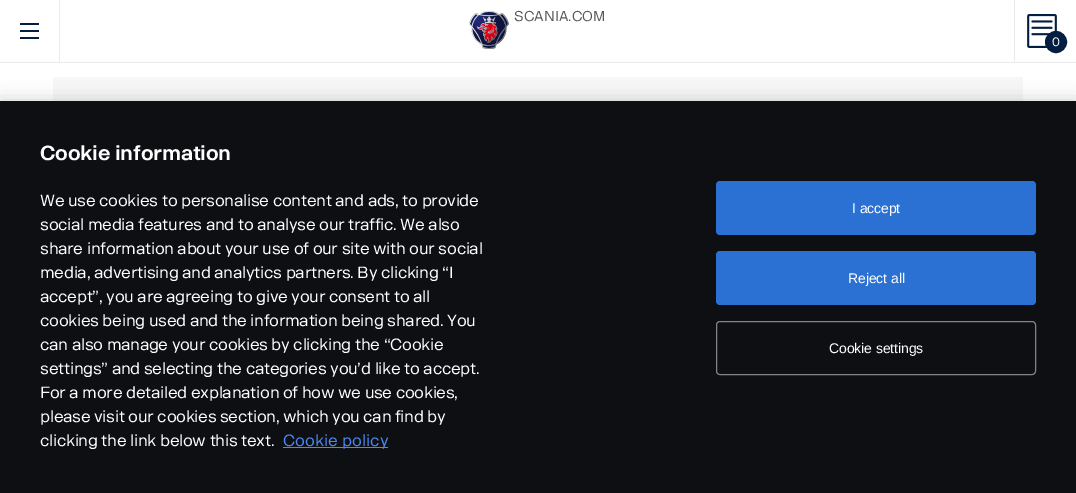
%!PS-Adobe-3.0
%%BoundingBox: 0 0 1076 493
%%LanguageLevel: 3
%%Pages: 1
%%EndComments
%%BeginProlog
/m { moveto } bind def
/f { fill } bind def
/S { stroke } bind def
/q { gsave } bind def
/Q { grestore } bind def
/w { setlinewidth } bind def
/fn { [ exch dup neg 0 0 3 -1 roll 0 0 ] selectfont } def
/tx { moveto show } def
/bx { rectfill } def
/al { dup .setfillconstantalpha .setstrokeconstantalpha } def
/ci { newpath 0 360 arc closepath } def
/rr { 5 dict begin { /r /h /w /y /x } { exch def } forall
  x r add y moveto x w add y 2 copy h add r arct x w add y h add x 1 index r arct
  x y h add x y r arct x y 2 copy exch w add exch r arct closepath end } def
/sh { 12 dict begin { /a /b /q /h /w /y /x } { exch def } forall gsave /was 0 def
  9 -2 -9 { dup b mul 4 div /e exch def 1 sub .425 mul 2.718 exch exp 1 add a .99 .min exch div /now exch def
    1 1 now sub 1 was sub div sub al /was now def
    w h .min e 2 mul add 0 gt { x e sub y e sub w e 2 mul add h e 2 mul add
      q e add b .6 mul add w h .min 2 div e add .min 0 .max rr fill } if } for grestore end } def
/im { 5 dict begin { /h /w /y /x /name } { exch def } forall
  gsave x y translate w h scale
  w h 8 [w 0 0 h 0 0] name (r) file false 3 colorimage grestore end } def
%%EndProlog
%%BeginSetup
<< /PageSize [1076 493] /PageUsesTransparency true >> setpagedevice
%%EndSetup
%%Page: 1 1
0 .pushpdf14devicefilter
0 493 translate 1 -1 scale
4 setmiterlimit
1 setgray
0 0 1076 493 bx
0.922 setgray
0 62 1076 1 bx
59 0 1 62 bx
0.016 0.118 0.259 setrgbcolor
20 23 19 2 bx
20 30 19 2 bx
20 37 19 2 bx
(image0.raw) 469 11 40 38 im
/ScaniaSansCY-Regular 14 fn
0.345 0.341 0.357 setrgbcolor
(SCANIA.COM) 514 21 tx
0.922 setgray
1014 0 1 62 bx
(image1.raw) 1027 14 30 34 im
0.016 0.118 0.259 setrgbcolor
1056 42 10 ci q f Q
2 w
S
/ScaniaSansCY-Regular 12 fn
1 setgray
(0) 1052 46 tx
0.969 setgray
53 77 970 24 bx
0 setgray
0 101 1076 392 0 9 0.2 sh
0.051 0.059 0.075 setrgbcolor
0 101 1076 392 bx
/ScaniaSansCY-Bold 20 fn
1 setgray
40 160 m -0.25 0 (Cookie information) ashow
/ScaniaSansCY-Regular 16 fn
40 206 m -0.32 0 (We use cookies to personalise content and ads, to provide) ashow
40 230 m -0.32 0 (social media features and to analyse our traffic. We also) ashow
40 254 m -0.32 0 (share information about your use of our site with our social) ashow
40 278 m -0.32 0 (media, advertising and analytics partners. By clicking “I) ashow
40 302 m -0.32 0 (accept”, you are agreeing to give your consent to all) ashow
40 326 m -0.32 0 (cookies being used and the information being shared. You) ashow
40 350 m -0.32 0 (can also manage your cookies by clicking the “Cookie) ashow
40 374 m -0.32 0 (settings” and selecting the categories you’d like to accept.) ashow
40 398 m -0.32 0 (For a more detailed explanation of how we use cookies,) ashow
40 422 m -0.32 0 (please visit our cookies section, which you can find by) ashow
40 446 m -0.32 0 (clicking the link below this text.) ashow
0.29 0.537 0.953 setrgbcolor
283 447 105 1 bx
(Cookie policy) 283 446 tx
0.169 0.439 0.827 setrgbcolor
716 181 320 54 4 rr f
/LiberationSans-Regular 14 fn
1 setgray
852 213 m -0.1 0 (I accept) ashow
0.169 0.439 0.827 setrgbcolor
716 251 320 54 4 rr f
1 setgray
848 283 m -0.1 0 (Reject all) ashow
0.506 0.51 0.518 setrgbcolor
1 w
716.5 321.5 319 53 3.5 rr S
1 setgray
829 353 m -0.1 0 (Cookie settings) ashow
.poppdf14devicefilter showpage
%%EOF
